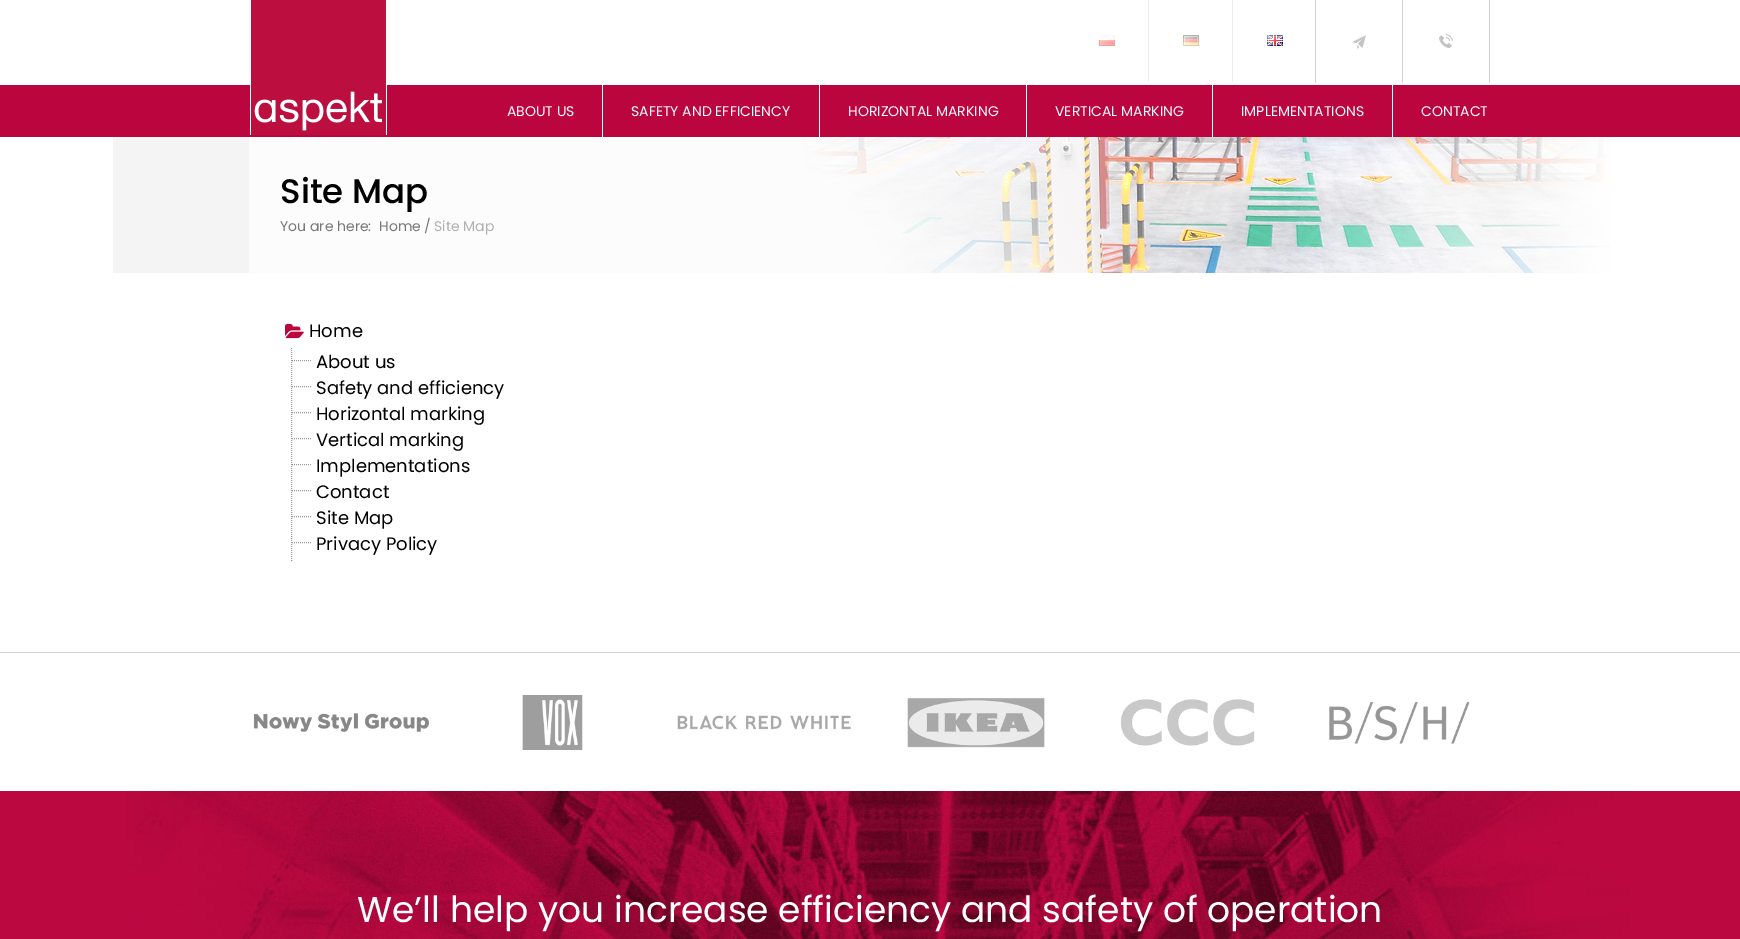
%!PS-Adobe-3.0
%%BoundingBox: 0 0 1740 939
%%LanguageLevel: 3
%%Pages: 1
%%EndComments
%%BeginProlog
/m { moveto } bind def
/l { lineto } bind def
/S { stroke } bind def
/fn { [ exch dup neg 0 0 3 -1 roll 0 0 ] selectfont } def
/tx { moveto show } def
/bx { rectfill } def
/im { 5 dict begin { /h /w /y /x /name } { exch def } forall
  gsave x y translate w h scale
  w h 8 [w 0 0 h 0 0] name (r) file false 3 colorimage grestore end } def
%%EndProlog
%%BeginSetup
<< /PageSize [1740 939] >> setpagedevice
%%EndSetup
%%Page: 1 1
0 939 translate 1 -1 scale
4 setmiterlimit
1 setgray
0 0 1740 939 bx
0.733 0.02 0.247 setrgbcolor
0 85 1740 52 bx
1 setgray
250 85 137 50 bx
(image0.raw) 251 0 135 135 im
0.929 setgray
1148 0 1 82 bx
(image1.raw) 1099 35 16 11 im
1232 0 1 82 bx
(image2.raw) 1183 35 16 11 im
(image3.raw) 1267 35 16 11 im
0.824 setgray
1315 0 1 83 bx
(image4.raw) 1352 35 14 14 im
1489 0 1 83 bx
1402 0 1 83 bx
(image5.raw) 1439 34 14 14 im
1 setgray
602 85 1 52 bx
/Poppins-Regular 14 fn
(ABOUT US) 507 116 tx
819 85 1 52 bx
(SAFETY AND EFFICIENCY) 631 116 tx
1026 85 1 52 bx
(HORIZONTAL MARKING) 848 116 tx
1212 85 1 52 bx
(VERTICAL MARKING) 1055 116 tx
1392 85 1 52 bx
(IMPLEMENTATIONS) 1241 116 tx
(CONTACT) 1421 116 tx
(image6.raw) 113 137 1498 136 im
/Poppins-Medium 34 fn
0 setgray
(Site Map) 280 203 tx
/Poppins-Regular 14 fn
0.467 setgray
(You are here:) 280 231 tx
(Home) 379 231 tx
(/) 424 231 tx
0.694 setgray
(Site Map) 434 231 tx
(image7.raw) 285 324 19 15 im
/Poppins-Regular 18 fn
0 setgray
(Home) 309 337 tx
0.6 setgray
[1 1] 0 setdash
291.5 348 m 291.5 379 l S
292 360.5 m 311 360.5 l 291.5 380 m 291.5 405 l S
0 setgray
(About us) 316 368 tx
0.6 setgray
292 386.5 m 311 386.5 l 291.5 406 m 291.5 431 l S
0 setgray
(Safety and efficiency) 316 394 tx
0.6 setgray
292 412.5 m 311 412.5 l 291.5 432 m 291.5 457 l S
0 setgray
(Horizontal marking) 316 420 tx
0.6 setgray
292 438.5 m 311 438.5 l 291.5 458 m 291.5 483 l S
0 setgray
(Vertical marking) 316 446 tx
0.6 setgray
292 464.5 m 311 464.5 l 291.5 484 m 291.5 509 l S
0 setgray
(Implementations) 316 472 tx
0.6 setgray
292 490.5 m 311 490.5 l 291.5 510 m 291.5 535 l S
0 setgray
(Contact) 316 498 tx
0.6 setgray
292 516.5 m 311 516.5 l 291.5 536 m 291.5 561 l S
0 setgray
(Site Map) 316 524 tx
0.6 setgray
292 542.5 m 311 542.5 l S
0 setgray
(Privacy Policy) 316 550 tx
0.824 setgray
0 652 1740 1 bx
(image8.raw) 253 713 176 19 im
(image9.raw) 522 695 61 55 im
(image10.raw) 677 715 174 15 im
(image11.raw) 907 698 138 50 im
(image12.raw) 1120 699 135 47 im
(image13.raw) 1329 702 141 42 im
0.737 0.031 0.255 setrgbcolor
0 791 1740 148 bx
(image14.raw) 126 791 1504 148 im
/Poppins-Regular 36 fn
1 setgray
(We’ll help you increase efficiency and safety of operation) 357 922 tx
showpage
%%EOF
